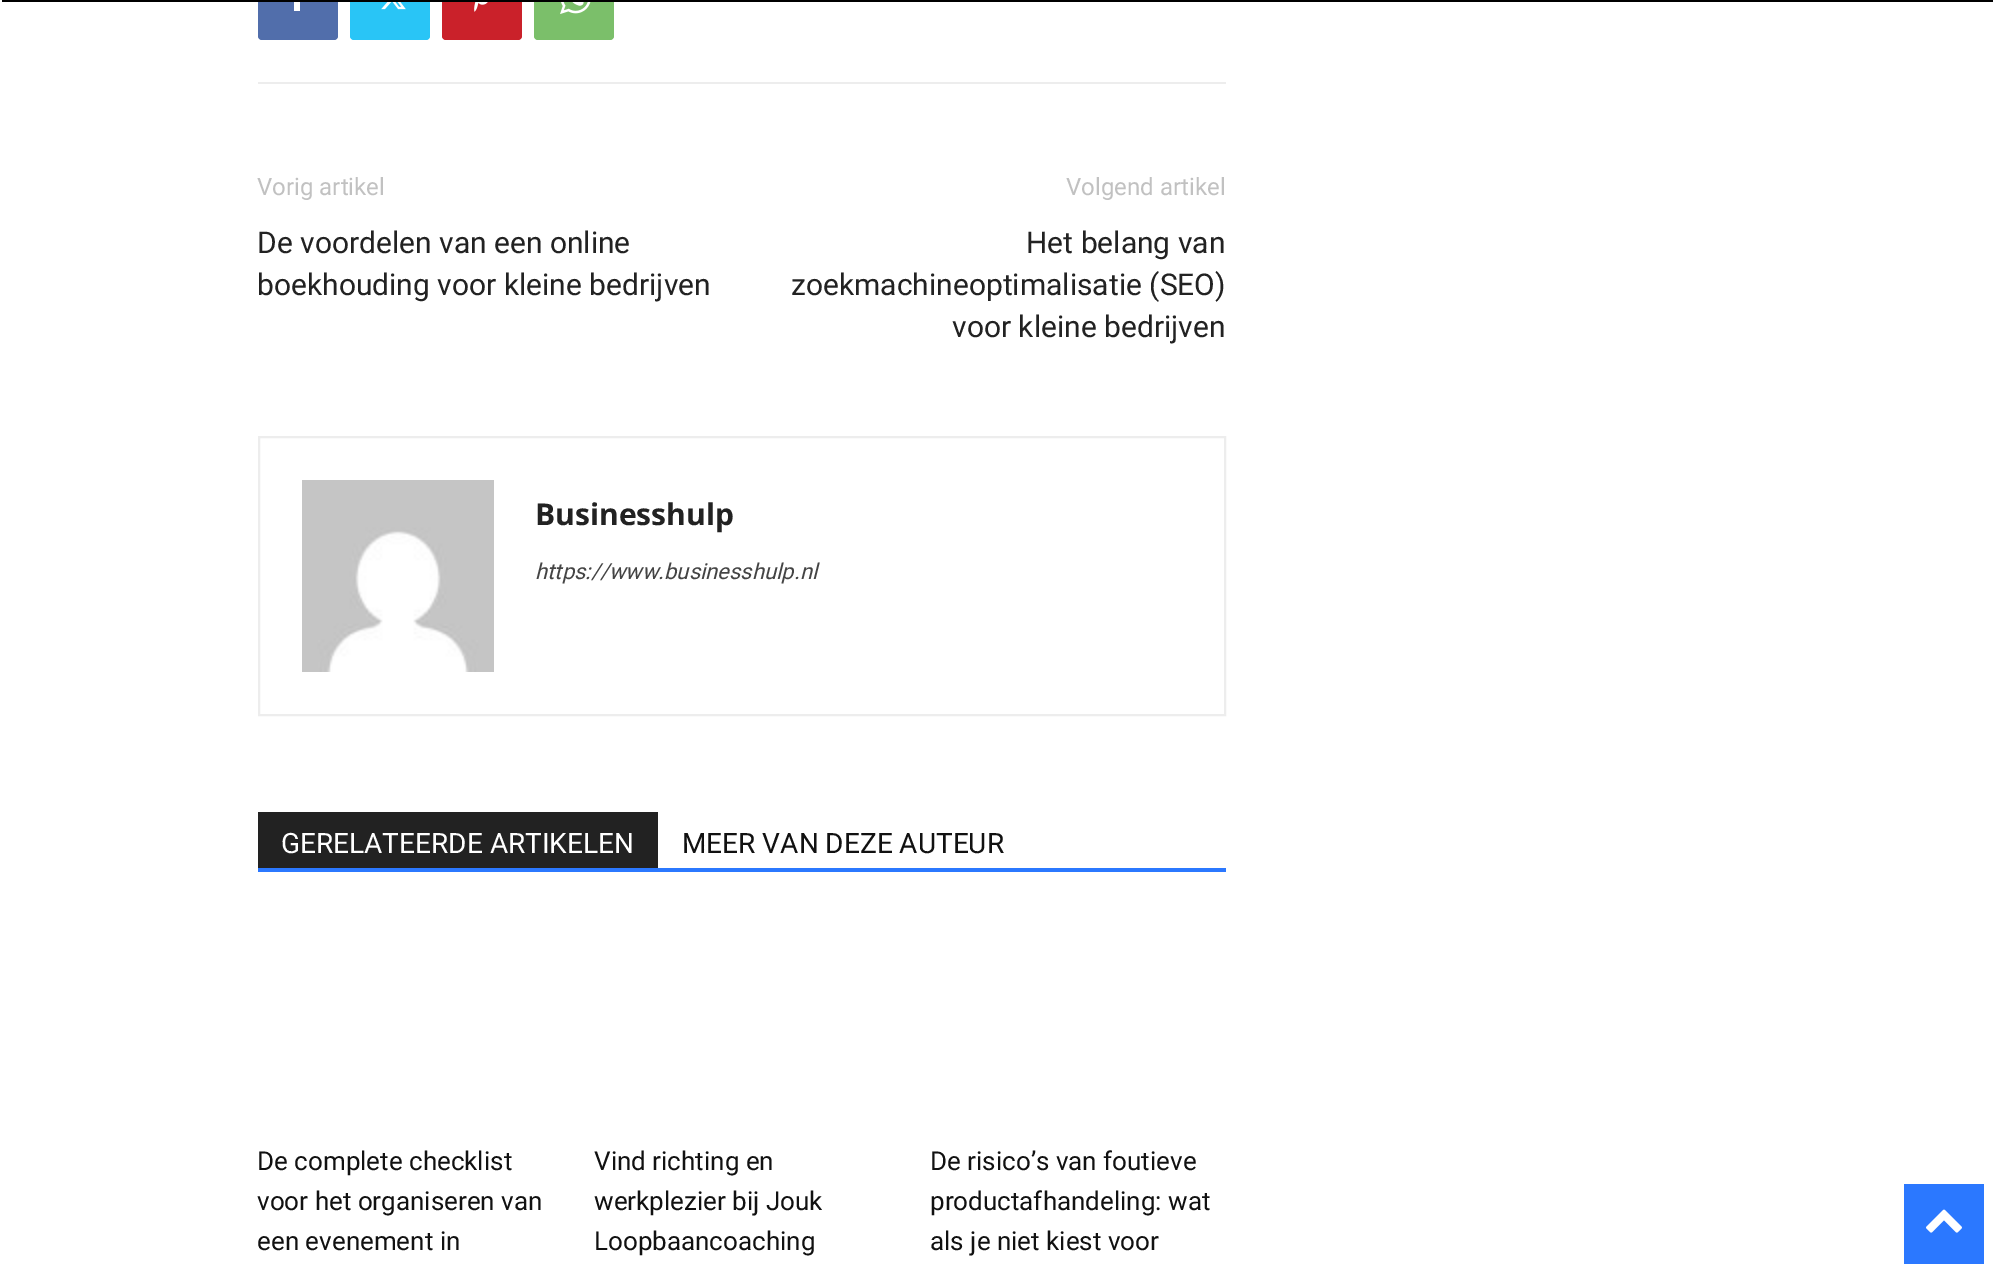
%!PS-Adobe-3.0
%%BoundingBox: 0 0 1993 1271
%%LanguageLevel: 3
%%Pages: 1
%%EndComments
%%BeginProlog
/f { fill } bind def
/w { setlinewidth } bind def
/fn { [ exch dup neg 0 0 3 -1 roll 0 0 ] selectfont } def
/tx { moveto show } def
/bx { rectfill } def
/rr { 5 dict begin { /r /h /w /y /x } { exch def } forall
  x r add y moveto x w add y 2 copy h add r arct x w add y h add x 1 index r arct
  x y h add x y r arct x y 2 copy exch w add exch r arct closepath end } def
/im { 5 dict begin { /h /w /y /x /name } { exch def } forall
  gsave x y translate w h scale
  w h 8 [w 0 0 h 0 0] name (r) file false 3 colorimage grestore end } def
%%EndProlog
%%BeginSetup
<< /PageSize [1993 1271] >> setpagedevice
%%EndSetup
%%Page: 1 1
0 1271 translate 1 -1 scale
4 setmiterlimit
1 setgray
0 0 1993 1271 bx
0.318 0.431 0.671 setrgbcolor
258 -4 80 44 4 rr f
1 setgray
294 0 6 11 bx
0.161 0.773 0.965 setrgbcolor
350 -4 80 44 4 rr f
0.792 0.129 0.165 setrgbcolor
442 -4 80 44 4 rr f
0.482 0.749 0.416 setrgbcolor
534 -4 80 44 4 rr f
0 setgray
2 0 1991 2 bx
0.929 setgray
258 82 968 2 bx
(image0.raw) 381 2 25 8 im
(image1.raw) 474 2 14 10 im
(image2.raw) 560 2 31 12 im
/Roboto-Regular 24 fn
0.757 setgray
(Vorig artikel) 257 195 tx
/Roboto-Regular 30 fn
0.133 setgray
(De voordelen van een online) 257 253 tx
(boekhouding voor kleine bedrijven) 257 295 tx
/Roboto-Regular 24 fn
0.757 setgray
(Volgend artikel) 1066 195 tx
/Roboto-Regular 30 fn
0.133 setgray
(Het belang van) 1026 253 tx
(zoekmachineoptimalisatie \(SEO\)) 791 295 tx
(voor kleine bedrijven) 952 337 tx
0.929 setgray
2 w
259 437 966 278 rectstroke
(image3.raw) 302 480 192 192 im
/OpenSans-Bold 30 fn
0.133 setgray
(Businesshulp) 535 525 tx
/Roboto-Italic 22 fn
0.267 setgray
(https://www.businesshulp.nl) 535 579 tx
0.169 0.471 1 setrgbcolor
258 868 968 4 bx
0.133 setgray
258 812 400 56 bx
/Roboto-Regular 28 fn
1 setgray
(GERELATEERDE ARTIKELEN) 281 853 tx
0.067 setgray
(MEER VAN DEZE AUTEUR) 682 853 tx
/Roboto-Regular 26 fn
(De complete checklist) 257 1170 tx
(voor het organiseren van) 257 1210 tx
(een evenement in) 257 1250 tx
(Vind richting en) 594 1170 tx
(werkplezier bij Jouk) 594 1210 tx
(Loopbaancoaching) 594 1250 tx
(De risico’s van foutieve) 930 1170 tx
(productafhandeling: wat) 930 1210 tx
(als je niet kiest voor) 930 1250 tx
0.169 0.471 1 setrgbcolor
1904 1184 80 80 bx
(image4.raw) 1926 1209 36 24 im
showpage
%%EOF
